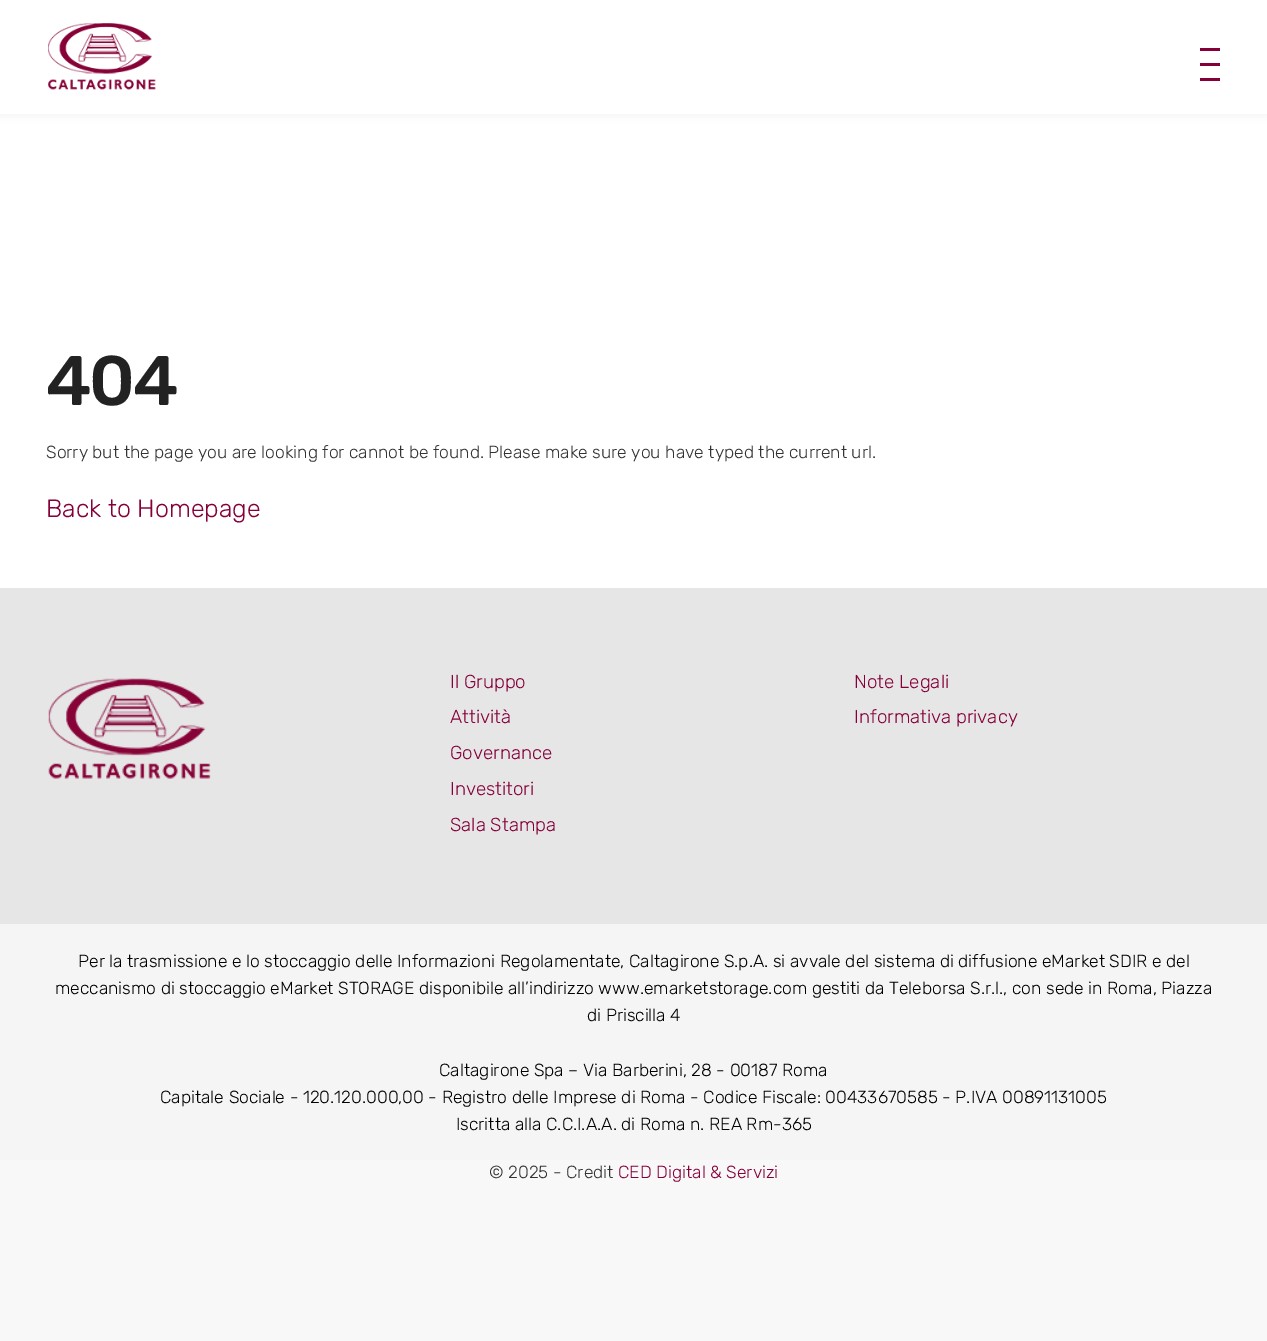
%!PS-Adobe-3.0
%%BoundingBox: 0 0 1267 1341
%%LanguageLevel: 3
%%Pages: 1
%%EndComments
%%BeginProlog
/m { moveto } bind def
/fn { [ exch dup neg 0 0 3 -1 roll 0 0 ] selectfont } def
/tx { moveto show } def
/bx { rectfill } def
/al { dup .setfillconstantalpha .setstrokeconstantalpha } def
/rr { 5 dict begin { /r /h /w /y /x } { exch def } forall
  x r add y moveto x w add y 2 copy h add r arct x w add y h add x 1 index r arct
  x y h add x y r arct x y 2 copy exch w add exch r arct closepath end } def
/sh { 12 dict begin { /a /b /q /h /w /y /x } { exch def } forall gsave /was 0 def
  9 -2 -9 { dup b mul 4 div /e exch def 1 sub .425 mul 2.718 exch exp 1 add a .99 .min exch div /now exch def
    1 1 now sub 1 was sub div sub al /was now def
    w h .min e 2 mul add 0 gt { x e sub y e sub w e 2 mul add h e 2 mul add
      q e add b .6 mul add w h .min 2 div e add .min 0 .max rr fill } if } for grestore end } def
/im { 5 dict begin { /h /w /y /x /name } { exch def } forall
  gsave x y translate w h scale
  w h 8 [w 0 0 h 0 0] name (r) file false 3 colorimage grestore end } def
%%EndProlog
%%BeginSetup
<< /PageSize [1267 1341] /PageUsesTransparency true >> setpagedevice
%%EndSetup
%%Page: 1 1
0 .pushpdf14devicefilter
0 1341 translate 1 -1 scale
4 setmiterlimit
0.973 setgray
0 0 1267 1341 bx
1 setgray
0 114 1267 474 bx
0 setgray
0 1 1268 114 0 5 0.05 sh
1 setgray
0 0 1267 114 bx
(image0.raw) 48 23 108 67 im
0.522 0 0.224 setrgbcolor
1200 48 20 3 bx
1200 63 20 3 bx
1200 78 20 3 bx
/Rubik-Medium 70 fn
0.133 setgray
46 405 m -2.5 0 (404) ashow
/Rubik-Light 17.5 fn
0.2 setgray
(Sorry but the page you are looking for cannot be found. Please make sure you have typed the current url.) 46 458 tx
/Rubik-Light 25 fn
0.522 0 0.224 setrgbcolor
(Back to Homepage) 46 517 tx
0.902 setgray
0 588 1267 336 bx
(image1.raw) 48 678 163 101 im
/Rubik-Light 18.75 fn
0.522 0 0.224 setrgbcolor
(Il Gruppo) 450 688 tx
(Attività) 450 723 tx
(Governance) 450 759 tx
(Investitori) 450 795 tx
(Sala Stampa) 450 831 tx
(Note Legali) 854 688 tx
(Informativa privacy) 854 723 tx
0.961 setgray
0 924 1267 236 bx
/Rubik-Light 17.5 fn
0 setgray
(Per la trasmissione e lo stoccaggio delle Informazioni Regolamentate, Caltagirone S.p.A. si avvale del sistema di diffusione eMarket SDIR e del) 78 967 tx
(meccanismo di stoccaggio eMarket STORAGE disponibile all’indirizzo www.emarketstorage.com gestiti da Teleborsa S.r.l., con sede in Roma, Piazza) 55 994 tx
(di Priscilla 4) 587 1021 tx
(Caltagirone Spa – Via Barberini, 28 - 00187 Roma) 439 1076 tx
(Capitale Sociale - 120.120.000,00 - Registro delle Imprese di Roma - Codice Fiscale: 00433670585 - P.IVA 00891131005) 160 1103 tx
(Iscritta alla C.C.I.A.A. di Roma n. REA Rm-365) 456 1130 tx
0.2 setgray
(© 2025 - Credit) 489 1178 tx
0.522 0 0.224 setrgbcolor
(CED Digital & Servizi) 618 1178 tx
.poppdf14devicefilter showpage
%%EOF
